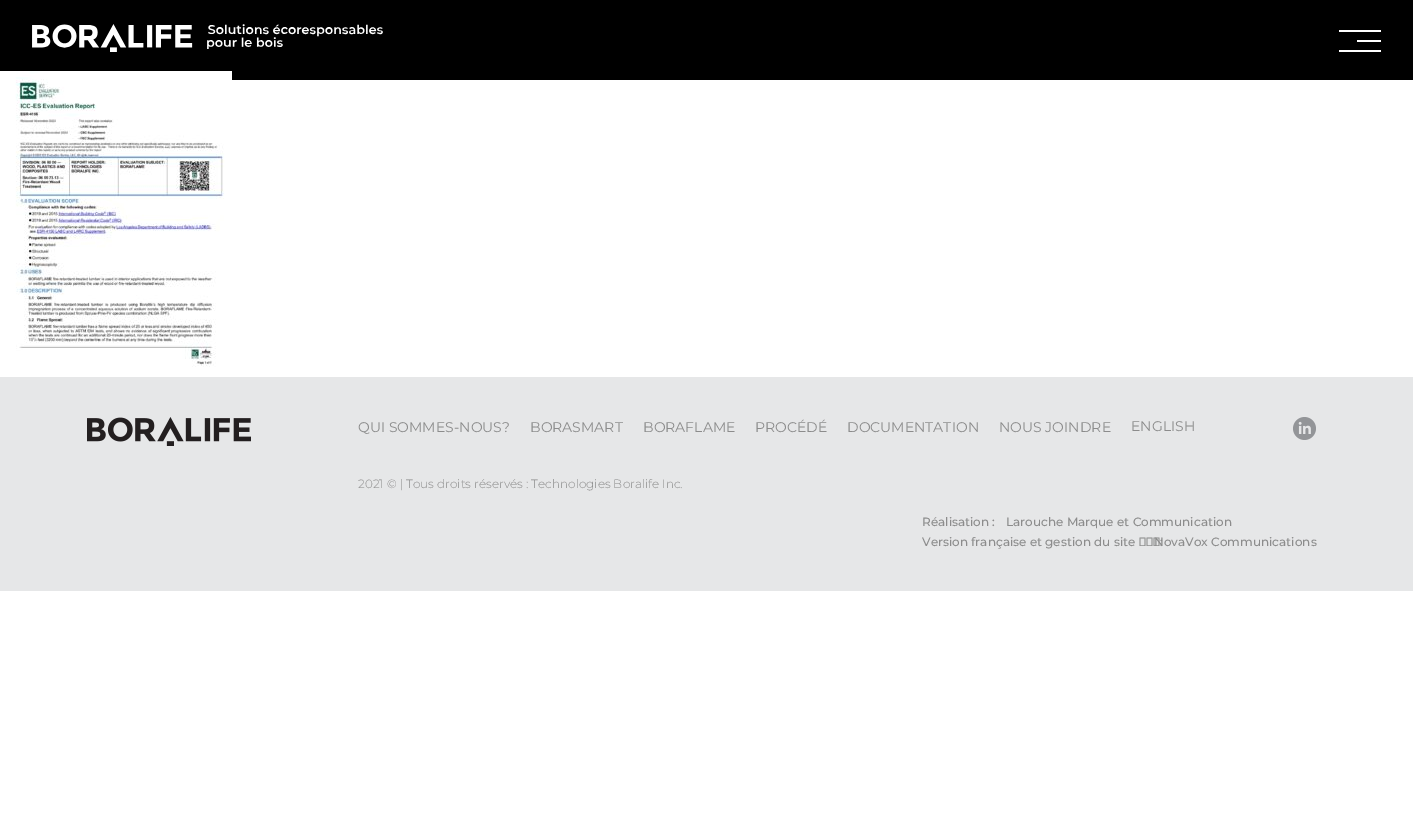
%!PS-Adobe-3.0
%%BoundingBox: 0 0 1413 815
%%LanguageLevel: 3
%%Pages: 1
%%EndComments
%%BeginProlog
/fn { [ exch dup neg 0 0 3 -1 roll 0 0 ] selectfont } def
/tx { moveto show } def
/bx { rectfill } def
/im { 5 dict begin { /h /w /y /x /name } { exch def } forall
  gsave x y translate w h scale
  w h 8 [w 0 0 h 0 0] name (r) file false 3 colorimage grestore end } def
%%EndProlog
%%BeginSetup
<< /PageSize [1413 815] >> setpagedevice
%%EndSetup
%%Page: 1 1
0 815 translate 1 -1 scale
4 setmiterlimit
1 setgray
0 0 1413 815 bx
0 setgray
0 0 1413 80 bx
(image0.raw) 32 24 351 28 im
1 setgray
1357 40 24 2 bx
1339 30 42 2 bx
1339 50 42 2 bx
(image1.raw) 0 71 232 296 im
0.902 0.906 0.91 setrgbcolor
0 377 1413 214 bx
(image2.raw) 87 417 164 29 im
/Montserrat-Regular 14 fn
0.549 setgray
(QUI SOMMES-NOUS?) 358 432 tx
(BORASMART) 530 432 tx
(BORAFLAME) 643 432 tx
(PROCÉDÉ) 755 432 tx
(DOCUMENTATION) 847 432 tx
(NOUS JOINDRE) 999 432 tx
(ENGLISH) 1131 431 tx
/Montserrat-Light 12 fn
(2021 © | Tous droits réservés : Technologies Boralife Inc.) 358 488 tx
(image3.raw) 1293 417 23 23 im
/Montserrat-Medium 12 fn
(Réalisation :) 922 526 tx
(Larouche Marque et Communication) 1006 526 tx
(Version française et gestion du site  :) 922 546 tx
(NovaVox Communications) 1154 546 tx
showpage
%%EOF
